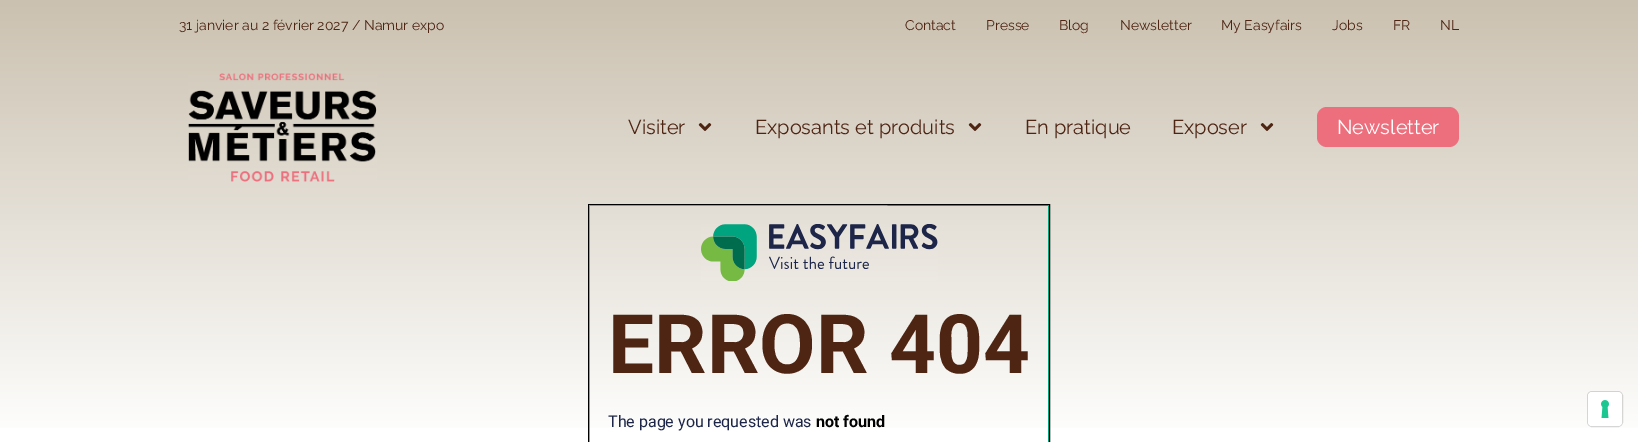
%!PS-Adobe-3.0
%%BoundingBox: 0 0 1638 442
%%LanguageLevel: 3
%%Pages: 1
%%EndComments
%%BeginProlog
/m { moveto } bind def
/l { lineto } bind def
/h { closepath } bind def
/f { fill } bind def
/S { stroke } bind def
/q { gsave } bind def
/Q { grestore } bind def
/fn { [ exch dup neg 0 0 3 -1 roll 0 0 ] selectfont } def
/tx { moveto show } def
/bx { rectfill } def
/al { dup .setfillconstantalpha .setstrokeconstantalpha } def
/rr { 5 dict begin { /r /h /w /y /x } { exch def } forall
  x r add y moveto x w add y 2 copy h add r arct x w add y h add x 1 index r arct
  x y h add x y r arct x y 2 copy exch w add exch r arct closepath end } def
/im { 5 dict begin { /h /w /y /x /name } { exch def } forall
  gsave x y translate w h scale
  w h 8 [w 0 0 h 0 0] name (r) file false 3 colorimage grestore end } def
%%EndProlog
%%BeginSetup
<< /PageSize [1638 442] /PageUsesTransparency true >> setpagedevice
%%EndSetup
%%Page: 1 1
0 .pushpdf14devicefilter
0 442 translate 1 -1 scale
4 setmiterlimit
1 setgray
0 0 1638 442 bx
q 0 0 m 1638 0 l 1638 428 l 0 428 l h clip newpath
<< /ShadingType 2 /ColorSpace /DeviceRGB /Coords [819 0 819 442] /Extend [true true] /Function << /FunctionType 2 /Domain [0 1] /C0 [0.796 0.757 0.69] /C1 [1 1 1] /N 1 >> >> shfill Q
/Raleway-Regular 14 fn
0.306 0.141 0.075 setrgbcolor
(31 janvier au 2 février 2027 / Namur expo) 179 30 tx
(Contact) 905 30 tx
(Presse) 986 30 tx
(Blog) 1059 30 tx
(Newsletter) 1120 30 tx
(My Easyfairs) 1221 30 tx
(Jobs) 1332 30 tx
(FR) 1393 30 tx
(NL) 1440 30 tx
(image0.raw) 188 73 189 109 im
/Raleway-Regular 20 fn
(Visiter) 628 134 tx
(image1.raw) 698 123 14 8 im
(Exposants et produits) 755 134 tx
(image1.raw) 968 123 14 8 im
(En pratique) 1025 134 tx
(Exposer) 1172 134 tx
(image1.raw) 1260 123 14 8 im
0.929 0.431 0.486 setrgbcolor
1317 107 142 40 10 rr f
1 setgray
(Newsletter) 1337 134 tx
(image2.raw) 701 224 237 57 im
0 setgray
588.5 204.5 461 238 rectstroke
0.463 0.729 0.263 setrgbcolor
590 206 m 590 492 l 751 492 l 750 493 l 589 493 l 589 205 l 888 205 l 887 206 l h f
0 0.647 0.498 setrgbcolor
1049 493 m 750 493 l 751 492 l 1048 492 l 1048 206 l 887 206 l 888 205 l 1049 205 l h f
/Roboto-Bold 82 fn
0.306 0.141 0.075 setrgbcolor
(ERROR 404) 608 373 tx
/Roboto-Regular 16 fn
0.114 0.149 0.286 setrgbcolor
(The page you requested was) 608 427 tx
/Roboto-Bold 16 fn
0 setgray
(not found) 816 427 tx
0.15 al
1587.5 391.5 35 35 4.5 rr S
1 al
1 setgray
1588 392 34 34 4 rr f
(image3.raw) 1601 400 8 18 im
.poppdf14devicefilter showpage
%%EOF
